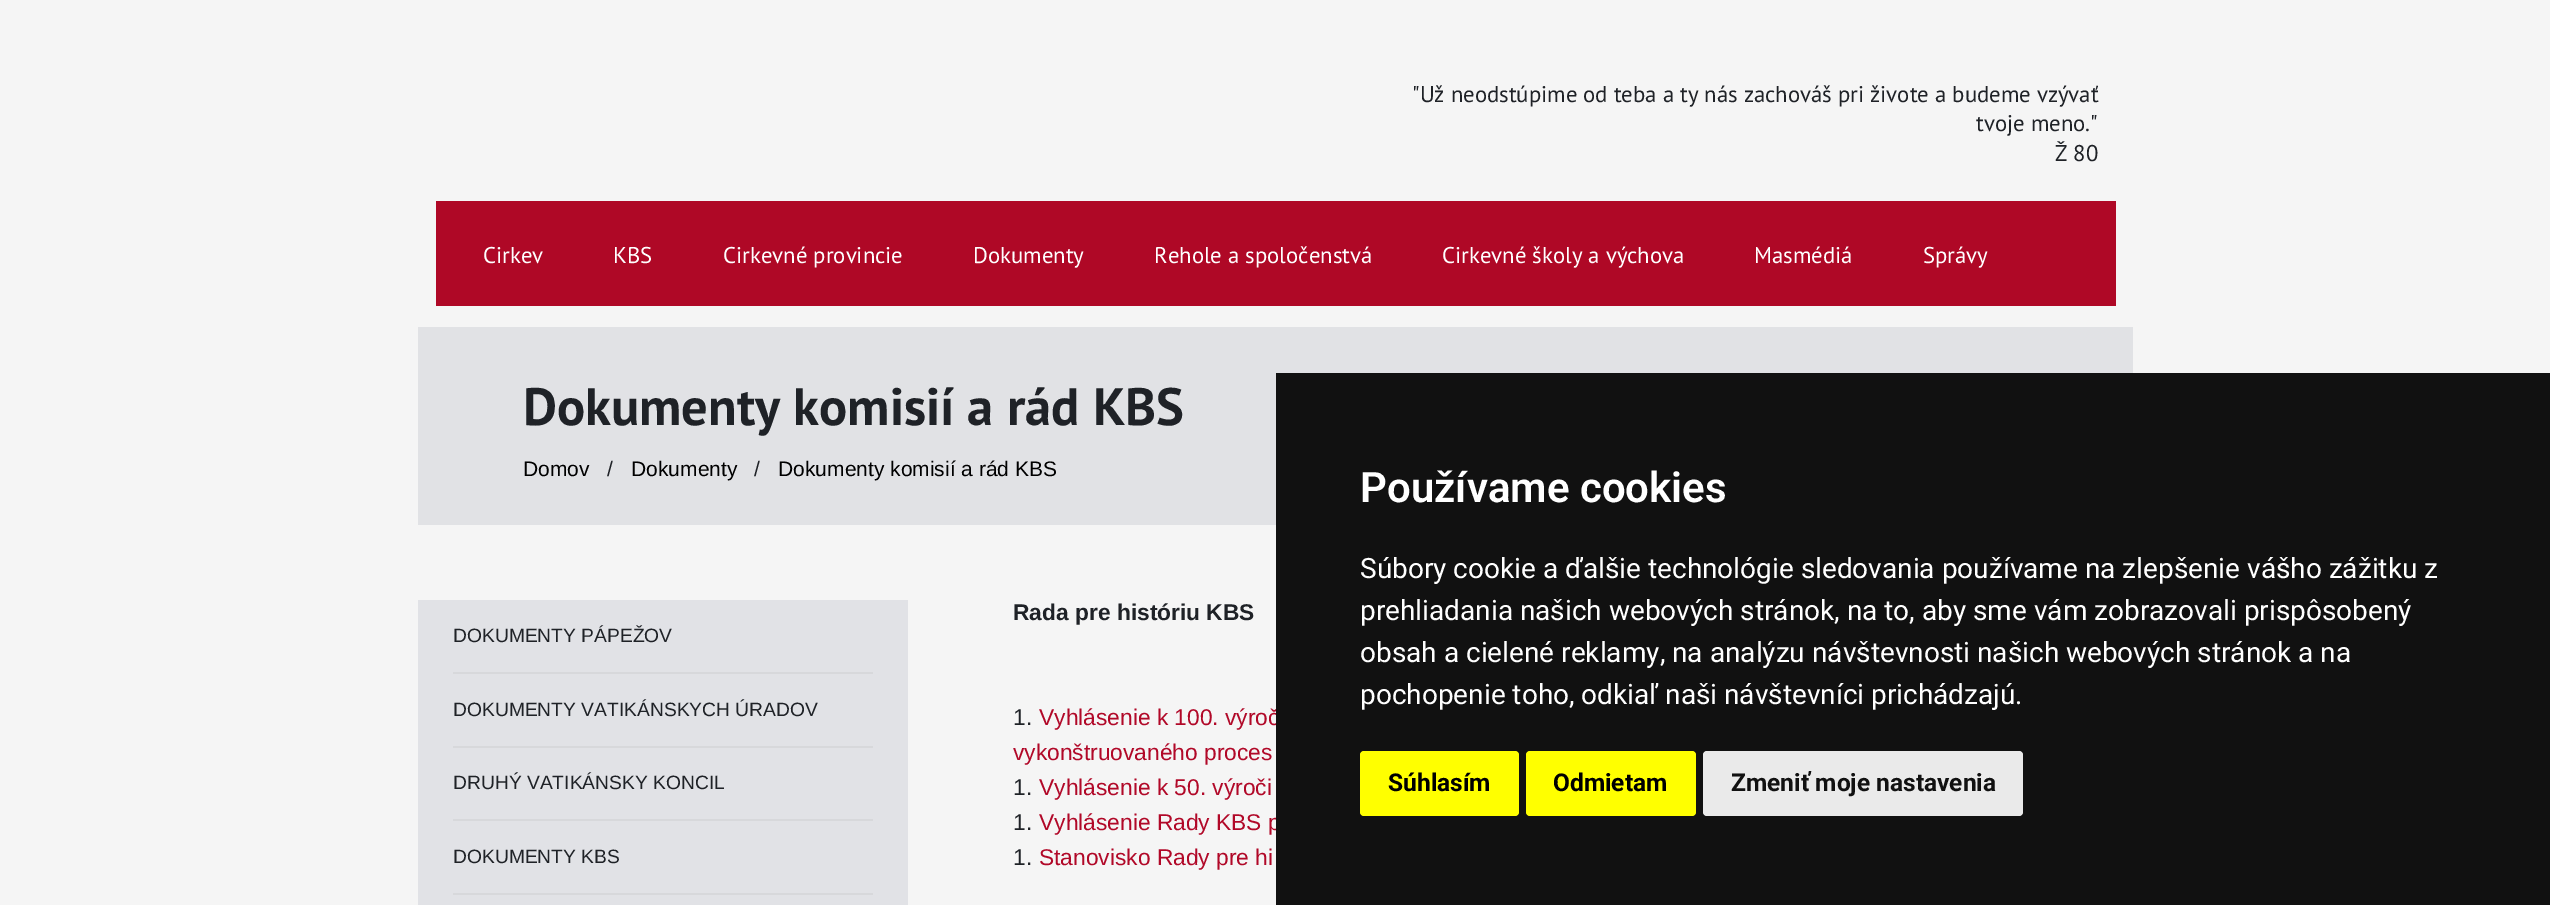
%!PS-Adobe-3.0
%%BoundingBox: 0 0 2550 905
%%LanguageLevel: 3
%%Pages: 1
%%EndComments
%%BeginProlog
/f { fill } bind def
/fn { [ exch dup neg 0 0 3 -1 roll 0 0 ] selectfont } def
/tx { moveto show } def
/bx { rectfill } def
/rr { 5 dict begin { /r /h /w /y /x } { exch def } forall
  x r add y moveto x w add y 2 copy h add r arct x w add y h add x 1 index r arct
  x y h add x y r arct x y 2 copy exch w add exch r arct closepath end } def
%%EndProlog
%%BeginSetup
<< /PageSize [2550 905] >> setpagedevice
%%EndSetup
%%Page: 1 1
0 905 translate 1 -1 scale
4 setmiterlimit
0.961 setgray
0 0 2550 905 bx
/PTSans-Regular 22.75 fn
0.122 0.133 0.153 setrgbcolor
("Už neodstúpime od teba a ty nás zachováš pri živote a budeme vzývať) 1412 102 tx
(tvoje meno.") 1976 131 tx
(Ž 80) 2055 161 tx
0.686 0.031 0.149 setrgbcolor
436 201 1680 105 bx
1 setgray
(Cirkev) 483 263 tx
(KBS) 613 263 tx
(Cirkevné provincie) 723 263 tx
(Dokumenty) 973 263 tx
(Rehole a spoločenstvá) 1154 263 tx
(Cirkevné školy a výchova) 1442 263 tx
(Masmédiá) 1754 263 tx
(Správy) 1923 263 tx
0.882 0.886 0.898 setrgbcolor
418 327 1715 198 bx
/PTSans-Bold 52.5 fn
0.122 0.133 0.153 setrgbcolor
(Dokumenty komisií a rád KBS) 523 425 tx
/LiberationSans-Regular 21 fn
0 setgray
(Domov) 523 476 tx
0.122 0.133 0.153 setrgbcolor
(/) 607 476 tx
0 setgray
(Dokumenty) 631 476 tx
0.122 0.133 0.153 setrgbcolor
(/) 754 476 tx
0 setgray
(Dokumenty komisií a rád KBS) 778 476 tx
0.882 0.886 0.902 setrgbcolor
418 600 490 305 bx
0.843 0.847 0.859 setrgbcolor
453 672 420 2 bx
/LiberationSans-Regular 19.25 fn
0.122 0.133 0.153 setrgbcolor
(DOKUMENTY PÁPEŽOV) 453 642 tx
0.843 0.847 0.859 setrgbcolor
453 746 420 2 bx
0.122 0.133 0.153 setrgbcolor
(DOKUMENTY VATIKÁNSKYCH ÚRADOV) 453 716 tx
0.843 0.847 0.859 setrgbcolor
453 819 420 2 bx
0.122 0.133 0.153 setrgbcolor
(DRUHÝ VATIKÁNSKY KONCIL) 453 789 tx
0.843 0.847 0.859 setrgbcolor
453 893 420 2 bx
0.122 0.133 0.153 setrgbcolor
(DOKUMENTY KBS) 453 863 tx
/LiberationSans-Bold 22.75 fn
(Rada pre históriu KBS) 1013 620 tx
/LiberationSans-Regular 22.75 fn
(1.) 1013 725 tx
0.694 0.031 0.157 setrgbcolor
(Vyhlásenie k 100. výroč) 1039 725 tx
(vykonštruovaného proces) 1013 760 tx
0.122 0.133 0.153 setrgbcolor
(1.) 1013 795 tx
0.694 0.031 0.157 setrgbcolor
(Vyhlásenie k 50. výroči) 1039 795 tx
0.122 0.133 0.153 setrgbcolor
(1.) 1013 830 tx
0.694 0.031 0.157 setrgbcolor
(Vyhlásenie Rady KBS p) 1039 830 tx
0.122 0.133 0.153 setrgbcolor
(1.) 1013 865 tx
0.694 0.031 0.157 setrgbcolor
(Stanovisko Rady pre hi) 1039 865 tx
0.067 setgray
1276 373 1274 532 bx
/Roboto-SemiBold 42 fn
1 setgray
(Používame cookies) 1360 502 tx
/Roboto-Regular 28 fn
(Súbory cookie a ďalšie technológie sledovania používame na zlepšenie vášho zážitku z) 1360 578 tx
(prehliadania našich webových stránok, na to, aby sme vám zobrazovali prispôsobený) 1360 620 tx
(obsah a cielené reklamy, na analýzu návštevnosti našich webových stránok a na) 1360 662 tx
(pochopenie toho, odkiaľ naši návštevníci prichádzajú.) 1360 704 tx
1 1 0 setrgbcolor
1360 751 159 65 4 rr f
/Roboto-Bold 24.5 fn
0 setgray
(Súhlasím) 1388 791 tx
1 1 0 setrgbcolor
1526 751 170 65 4 rr f
0 setgray
(Odmietam) 1553 791 tx
0.918 setgray
1703 751 320 65 4 rr f
0.067 setgray
(Zmeniť moje nastavenia) 1731 791 tx
showpage
%%EOF
